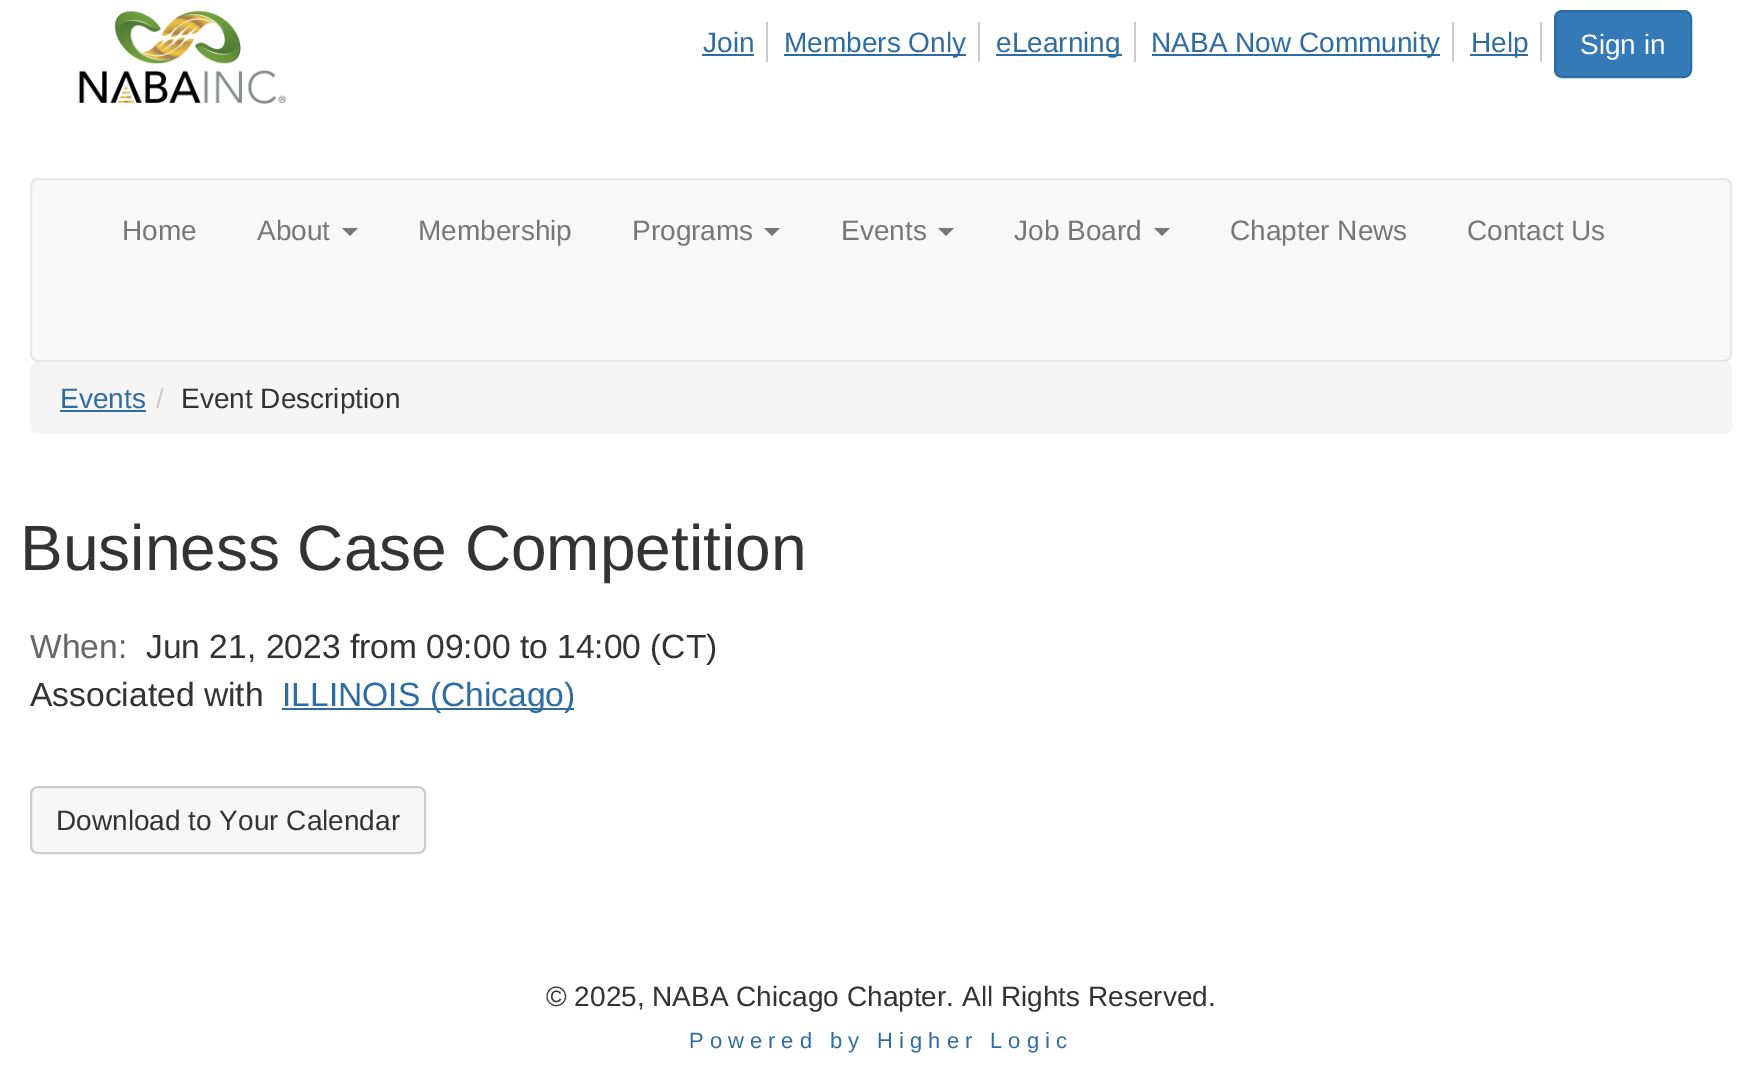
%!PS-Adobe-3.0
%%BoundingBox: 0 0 1762 1073
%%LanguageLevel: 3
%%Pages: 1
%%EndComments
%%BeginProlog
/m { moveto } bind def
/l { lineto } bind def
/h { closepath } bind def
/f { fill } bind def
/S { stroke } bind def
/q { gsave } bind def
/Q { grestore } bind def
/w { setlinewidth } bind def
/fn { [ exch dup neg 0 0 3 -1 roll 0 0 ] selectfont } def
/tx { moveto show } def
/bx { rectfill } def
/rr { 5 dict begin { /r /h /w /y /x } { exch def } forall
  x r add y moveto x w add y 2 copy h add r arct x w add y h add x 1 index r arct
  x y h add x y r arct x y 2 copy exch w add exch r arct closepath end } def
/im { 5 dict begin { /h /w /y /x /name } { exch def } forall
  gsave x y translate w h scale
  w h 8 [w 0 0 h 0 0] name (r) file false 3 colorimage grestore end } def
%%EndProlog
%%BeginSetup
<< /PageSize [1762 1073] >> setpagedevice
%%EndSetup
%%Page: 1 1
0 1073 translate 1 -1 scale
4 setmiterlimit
1 setgray
0 0 1762 1073 bx
(image0.raw) 60 0 240 118 im
0.8 setgray
766 22 2 40 bx
/LiberationSans-Regular 28 fn
0.18 0.427 0.643 setrgbcolor
(Join) 703 52 tx
702 54 52 2 bx
0.8 setgray
978 22 2 40 bx
0.18 0.427 0.643 setrgbcolor
784 54 182 2 bx
(Members Only) 784 52 tx
0.8 setgray
1134 22 2 40 bx
0.18 0.427 0.643 setrgbcolor
996 54 126 2 bx
(eLearning) 996 52 tx
0.8 setgray
1452 22 2 40 bx
0.18 0.427 0.643 setrgbcolor
1152 54 288 2 bx
(NABA Now Community) 1151 52 tx
0.8 setgray
1540 22 2 40 bx
0.18 0.427 0.643 setrgbcolor
1470 54 58 2 bx
(Help) 1471 52 tx
0.2 0.478 0.718 setrgbcolor
1555 11 136 66 7 rr q f Q
0.18 0.427 0.643 setrgbcolor
2 w
S
1 setgray
(Sign in) 1580 54 tx
0.973 setgray
31 179 1700 182 7 rr q f Q
0.906 setgray
S
0.467 setgray
(Home) 122 240 tx
(About) 257 240 tx
342 228 m 358 228 l 350 236 l h f
(Membership) 418 240 tx
(Programs) 632 240 tx
764 228 m 780 228 l 772 236 l h f
(Events) 841 240 tx
938 228 m 954 228 l 946 236 l h f
(Job Board) 1014 240 tx
1154 228 m 1170 228 l 1162 236 l h f
(Chapter News) 1230 240 tx
(Contact Us) 1467 240 tx
0.961 setgray
30 362 1702 72 8 rr f
0.18 0.427 0.643 setrgbcolor
(Events) 60 408 tx
60 410 86 2 bx
0.8 setgray
(/) 156 408 tx
0.2 setgray
(Event Description) 181 408 tx
/LiberationSans-Regular 64 fn
(Business Case Competition) 20 570 tx
/LiberationSans-Regular 33.6 fn
0.4 setgray
(When:) 30 658 tx
0.2 setgray
(Jun 21, 2023 from 09:00 to 14:00 \(CT\)) 146 658 tx
(Associated with) 30 706 tx
0.18 0.427 0.643 setrgbcolor
282 708 292 2 bx
(ILLINOIS \(Chicago\)) 282 706 tx
0.969 setgray
31 787 394 66 7 rr q f Q
0.8 setgray
S
/LiberationSans-Regular 28 fn
0.2 setgray
(Download to Your Calendar) 56 830 tx
(© 2025, NABA Chicago Chapter. All Rights Reserved.) 546 1006 tx
/LiberationSans-Regular 22 fn
0.18 0.427 0.643 setrgbcolor
689 1048 m 6 0 (Powered by Higher Logic) ashow
showpage
%%EOF
